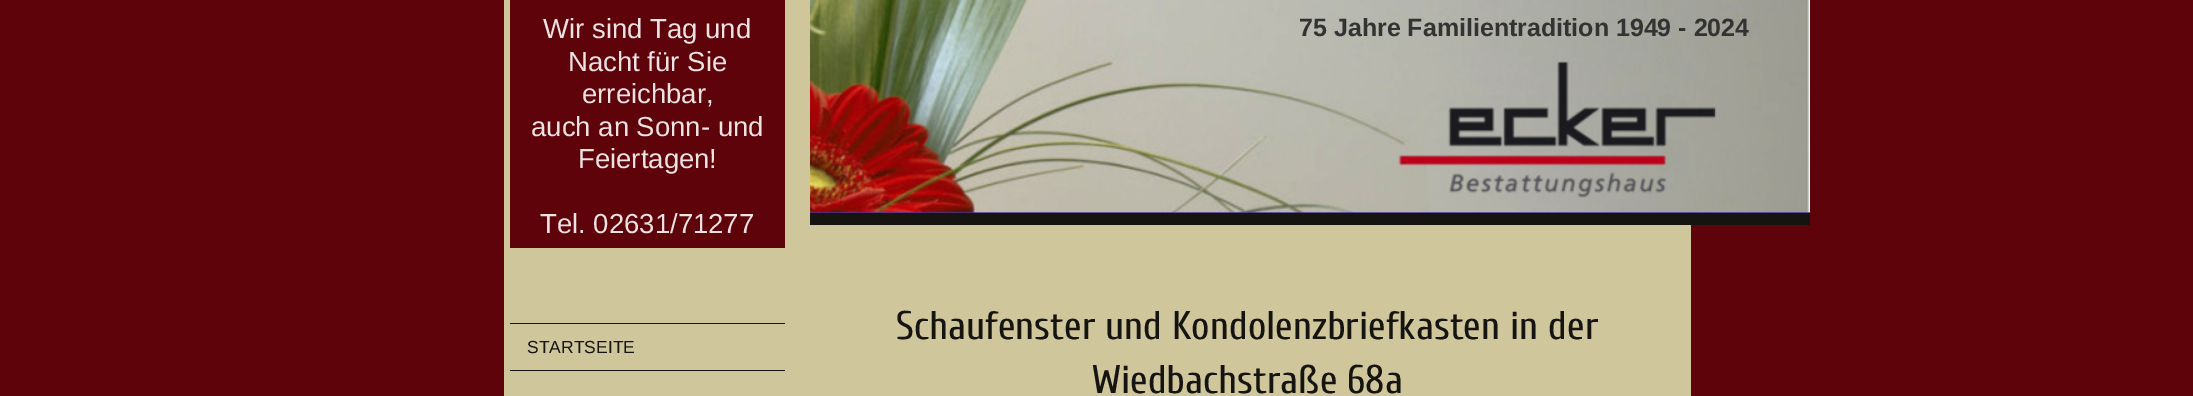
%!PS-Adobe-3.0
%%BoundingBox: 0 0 2193 396
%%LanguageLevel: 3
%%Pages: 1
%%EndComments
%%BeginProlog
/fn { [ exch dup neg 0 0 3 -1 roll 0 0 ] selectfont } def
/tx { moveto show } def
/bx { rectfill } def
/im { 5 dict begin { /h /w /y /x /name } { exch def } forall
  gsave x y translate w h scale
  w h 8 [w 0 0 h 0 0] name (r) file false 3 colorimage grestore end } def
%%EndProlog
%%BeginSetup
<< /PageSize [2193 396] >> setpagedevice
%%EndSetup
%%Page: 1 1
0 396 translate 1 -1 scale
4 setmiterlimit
0.373 0.012 0.039 setrgbcolor
0 0 2193 396 bx
0.816 0.776 0.608 setrgbcolor
504 0 1187 396 bx
0.373 0.012 0.039 setrgbcolor
510 0 275 248 bx
/LiberationSans-Regular 27.5 fn
0.937 0.886 0.89 setrgbcolor
(Wir sind Tag und) 543 38 tx
(Nacht für Sie) 568 71 tx
(erreichbar,) 582 103 tx
(auch an Sonn- und) 531 136 tx
(Feiertagen!) 578 168 tx
(Tel. 02631/71277) 540 233 tx
0.082 0.078 0.063 setrgbcolor
510 323 275 1 bx
510 370 275 1 bx
/LiberationSans-Regular 17.5 fn
(STARTSEITE) 527 353 tx
810 213 1000 12 bx
0.278 0.196 0.608 setrgbcolor
810 212 1000 1 bx
(image0.raw) 810 0 1000 213 im
/LiberationSans-Bold 25 fn
0.2 setgray
(75 Jahre Familientradition 1949 - 2024) 1299 36 tx
/Cuprum-Regular 40 fn
0.082 0.078 0.063 setrgbcolor
(Schaufenster und Kondolenzbriefkasten in der) 896 339 tx
(Wiedbachstraße 68a) 1092 393 tx
showpage
%%EOF
